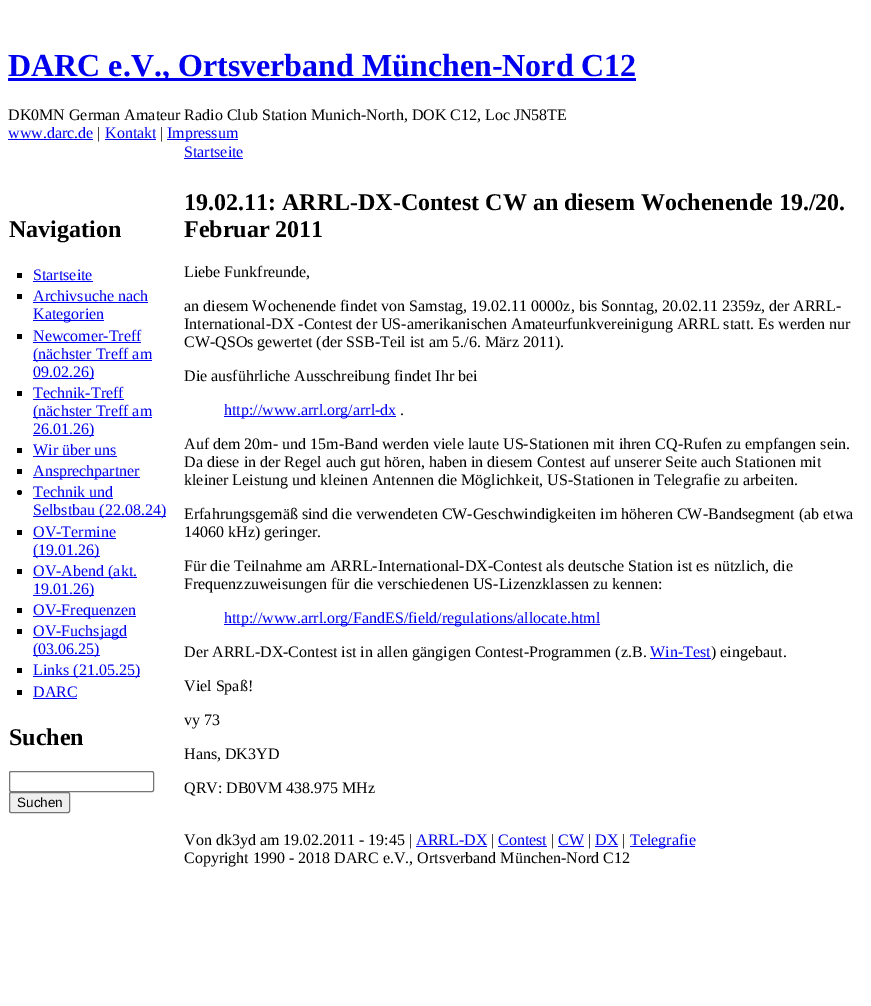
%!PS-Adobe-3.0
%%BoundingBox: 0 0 871 1006
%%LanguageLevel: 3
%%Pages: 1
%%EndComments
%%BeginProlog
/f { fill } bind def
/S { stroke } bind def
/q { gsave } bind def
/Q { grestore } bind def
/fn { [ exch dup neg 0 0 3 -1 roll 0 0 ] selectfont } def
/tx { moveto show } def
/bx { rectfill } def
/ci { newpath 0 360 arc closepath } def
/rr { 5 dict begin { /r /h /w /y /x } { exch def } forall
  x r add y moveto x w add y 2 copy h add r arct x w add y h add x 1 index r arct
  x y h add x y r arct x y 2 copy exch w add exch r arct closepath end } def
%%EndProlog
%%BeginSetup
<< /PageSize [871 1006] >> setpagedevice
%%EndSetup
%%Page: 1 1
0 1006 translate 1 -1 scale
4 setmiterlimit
1 setgray
0 0 871 1006 bx
0 0 0.933 setrgbcolor
8 78 628 3 bx
/LiberationSerif-Bold 32 fn
(DARC e.V., Ortsverband München-Nord C12) 8 76 tx
/LiberationSerif-Regular 16 fn
0 setgray
(DK0MN German Amateur Radio Club Station Munich-North, DOK C12, Loc JN58TE) 8 120 tx
0 0 0.933 setrgbcolor
(www.darc.de) 8 138 tx
8 139 85 1 bx
0 setgray
(|) 97 138 tx
0 0 0.933 setrgbcolor
(Kontakt) 105 138 tx
105 139 51 1 bx
0 setgray
(|) 160 138 tx
0 0 0.933 setrgbcolor
167 139 71 1 bx
(Impressum) 167 138 tx
/LiberationSerif-Bold 24 fn
0 setgray
(Navigation) 9 237 tx
17 273 5 5 bx
/LiberationSerif-Regular 16 fn
0 0 0.933 setrgbcolor
(Startseite) 33 280 tx
33 281 60 1 bx
0 setgray
17 294 5 5 bx
0 0 0.933 setrgbcolor
(Archivsuche nach) 33 301 tx
33 302 115 1 bx
33 320 71 1 bx
(Kategorien) 33 319 tx
0 setgray
17 334 5 5 bx
0 0 0.933 setrgbcolor
(Newcomer-Treff) 33 341 tx
33 342 108 1 bx
33 360 119 1 bx
(\(nächster Treff am) 33 359 tx
33 378 61 1 bx
(09.02.26\)) 33 377 tx
0 setgray
17 391 5 5 bx
0 0 0.933 setrgbcolor
(Technik-Treff) 33 398 tx
33 399 91 1 bx
33 417 119 1 bx
(\(nächster Treff am) 33 416 tx
33 435 61 1 bx
(26.01.26\)) 33 434 tx
0 setgray
17 448 5 5 bx
0 0 0.933 setrgbcolor
(Wir über uns) 33 455 tx
33 456 84 1 bx
0 setgray
17 469 5 5 bx
0 0 0.933 setrgbcolor
33 477 107 1 bx
(Ansprechpartner) 33 476 tx
0 setgray
19.5 492.5 2.5 ci f
0 0 0.933 setrgbcolor
(Technik und) 33 497 tx
33 498 80 1 bx
33 516 133 1 bx
(Selbstbau \(22.08.24\)) 33 515 tx
0 setgray
17 530 5 5 bx
0 0 0.933 setrgbcolor
(OV-Termine) 33 537 tx
33 538 83 1 bx
33 556 67 1 bx
(\(19.01.26\)) 33 555 tx
0 setgray
17 569 5 5 bx
0 0 0.933 setrgbcolor
33 577 104 1 bx
(OV-Abend \(akt.) 33 576 tx
33 595 61 1 bx
(19.01.26\)) 33 594 tx
0 setgray
17 608 5 5 bx
0 0 0.933 setrgbcolor
33 616 103 1 bx
(OV-Frequenzen) 33 615 tx
0 setgray
17 629 5 5 bx
0 0 0.933 setrgbcolor
33 637 94 1 bx
(OV-Fuchsjagd) 33 636 tx
33 655 67 1 bx
(\(03.06.25\)) 33 654 tx
0 setgray
17 668 5 5 bx
0 0 0.933 setrgbcolor
33 676 107 1 bx
(Links \(21.05.25\)) 33 675 tx
0 setgray
17 690 5 5 bx
0 0 0.933 setrgbcolor
(DARC) 33 697 tx
33 698 44 1 bx
/LiberationSerif-Bold 24 fn
0 setgray
(Suchen) 9 745 tx
0.463 setgray
9.5 771.5 144 20 1.5 rr S
0.937 setgray
9.5 792.5 60 20 1.5 rr q f Q
0.463 setgray
S
/LiberationSans-Regular 13.5 fn
0 setgray
(Suchen) 17 807 tx
/LiberationSerif-Regular 16 fn
0 0 0.933 setrgbcolor
(Startseite) 184 157 tx
184 158 59 1 bx
/LiberationSerif-Bold 24 fn
0 setgray
(19.02.11: ARRL-DX-Contest CW an diesem Wochenende 19./20.) 184 210 tx
(Februar 2011) 184 237 tx
/LiberationSerif-Regular 16 fn
(Liebe Funkfreunde,) 184 277 tx
(an diesem Wochenende findet von Samstag, 19.02.11 0000z, bis Sonntag, 20.02.11 2359z, der ARRL-) 184 311 tx
(International-DX -Contest der US-amerikanischen Amateurfunkvereinigung ARRL statt. Es werden nur) 184 329 tx
(CW-QSOs gewertet \(der SSB-Teil ist am 5./6. März 2011\).) 184 347 tx
(Die ausführliche Ausschreibung findet Ihr bei) 184 381 tx
0 0 0.933 setrgbcolor
224 416 172 1 bx
(http://www.arrl.org/arrl-dx) 224 415 tx
0 setgray
(.) 400 415 tx
(Auf dem 20m- und 15m-Band werden viele laute US-Stationen mit ihren CQ-Rufen zu empfangen sein.) 184 449 tx
(Da diese in der Regel auch gut hören, haben in diesem Contest auf unserer Seite auch Stationen mit) 184 467 tx
(kleiner Leistung und kleinen Antennen die Möglichkeit, US-Stationen in Telegrafie zu arbeiten.) 184 485 tx
(Erfahrungsgemäß sind die verwendeten CW-Geschwindigkeiten im höheren CW-Bandsegment \(ab etwa) 184 519 tx
(14060 kHz\) geringer.) 184 537 tx
(Für die Teilnahme am ARRL-International-DX-Contest als deutsche Station ist es nützlich, die) 184 571 tx
(Frequenzzuweisungen für die verschiedenen US-Lizenzklassen zu kennen:) 184 589 tx
0 0 0.933 setrgbcolor
224 624 376 1 bx
(http://www.arrl.org/FandES/field/regulations/allocate.html) 224 623 tx
0 setgray
(Der ARRL-DX-Contest ist in allen gängigen Contest-Programmen \(z.B.) 184 657 tx
0 0 0.933 setrgbcolor
(Win-Test) 650 657 tx
650 658 61 1 bx
0 setgray
(\) eingebaut.) 711 657 tx
(Viel Spaß!) 184 691 tx
(vy 73) 184 725 tx
(Hans, DK3YD) 184 759 tx
(QRV: DB0VM 438.975 MHz) 184 793 tx
(Von dk3yd am 19.02.2011 - 19:45 |) 184 845 tx
0 0 0.933 setrgbcolor
(ARRL-DX) 416 845 tx
416 846 71 1 bx
0 setgray
(|) 491 845 tx
0 0 0.933 setrgbcolor
(Contest) 498 845 tx
498 846 49 1 bx
0 setgray
(|) 551 845 tx
0 0 0.933 setrgbcolor
(CW) 558 845 tx
558 846 26 1 bx
0 setgray
(|) 588 845 tx
0 0 0.933 setrgbcolor
(DX) 595 845 tx
595 846 23 1 bx
0 setgray
(|) 622 845 tx
0 0 0.933 setrgbcolor
630 846 65 1 bx
(Telegrafie) 630 845 tx
0 setgray
(Copyright 1990 - 2018 DARC e.V., Ortsverband München-Nord C12) 184 863 tx
showpage
%%EOF
